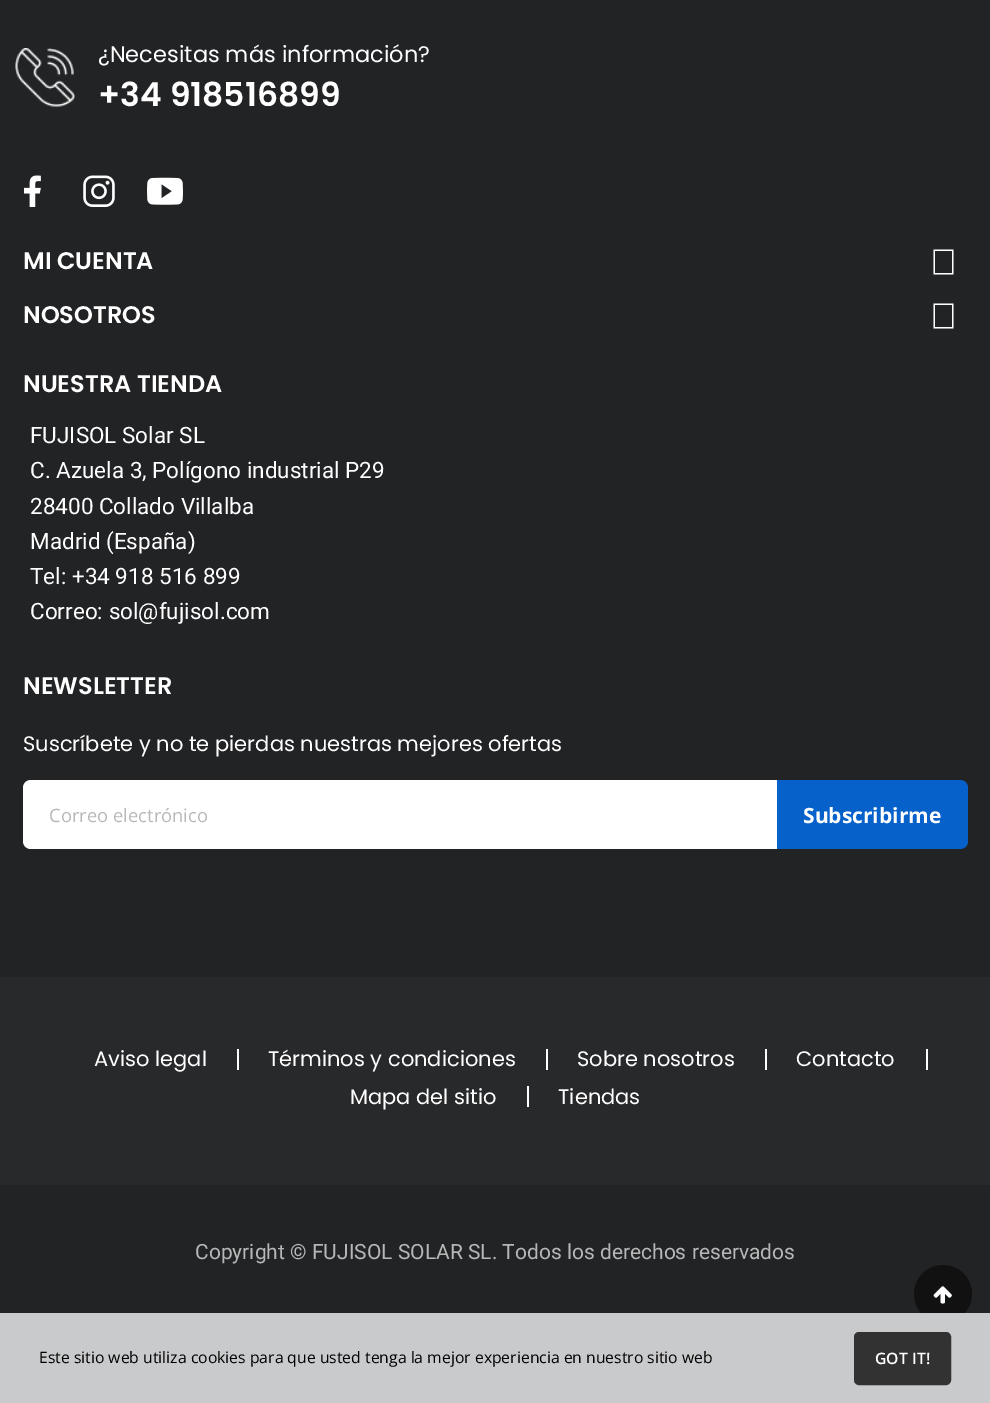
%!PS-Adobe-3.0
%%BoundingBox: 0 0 990 1403
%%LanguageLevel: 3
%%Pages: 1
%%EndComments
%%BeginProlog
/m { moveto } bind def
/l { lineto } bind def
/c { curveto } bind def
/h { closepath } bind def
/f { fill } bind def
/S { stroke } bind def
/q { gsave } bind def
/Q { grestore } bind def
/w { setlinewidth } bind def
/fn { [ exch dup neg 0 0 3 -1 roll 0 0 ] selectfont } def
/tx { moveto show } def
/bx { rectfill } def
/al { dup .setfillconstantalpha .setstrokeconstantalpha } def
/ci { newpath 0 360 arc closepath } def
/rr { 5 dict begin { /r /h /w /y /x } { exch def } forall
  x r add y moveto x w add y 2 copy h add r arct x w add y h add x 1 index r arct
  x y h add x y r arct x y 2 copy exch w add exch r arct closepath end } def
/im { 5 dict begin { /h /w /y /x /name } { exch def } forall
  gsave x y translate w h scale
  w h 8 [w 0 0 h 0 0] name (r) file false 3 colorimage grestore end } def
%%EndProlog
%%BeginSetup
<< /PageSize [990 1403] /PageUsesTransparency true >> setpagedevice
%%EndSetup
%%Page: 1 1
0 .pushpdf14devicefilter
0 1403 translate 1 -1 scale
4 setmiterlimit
0.133 0.137 0.145 setrgbcolor
0 0 990 1403 bx
(image0.raw) 15 48 60 59 im
/Poppins-Regular 22.5 fn
1 setgray
(¿Necesitas más información?) 98 62 tx
/Poppins-SemiBold 33 fn
(+34 918516899) 98 106 tx
(image1.raw) 24 175 17 32 im
(image2.raw) 83 175 32 32 im
(image3.raw) 147 177 36 28 im
/Poppins-SemiBold 24 fn
(MI CUENTA) 23 269 tx
933.5 249.5 m 953.5 249.5 l 953.5 274.5 l 933.5 274.5 l h 935 251 m 935 273 l 952 273 l 952 251 l h f
(NOSOTROS) 23 323 tx
933.5 303.5 m 953.5 303.5 l 953.5 328.5 l 933.5 328.5 l h 935 305 m 935 327 l 952 327 l 952 305 l h f
(NUESTRA TIENDA) 23 392 tx
/Roboto-Regular 22.5 fn
(FUJISOL Solar SL) 30 443 tx
(C. Azuela 3, Polígono industrial P29) 30 478 tx
(28400 Collado Villalba) 30 514 tx
(Madrid \(España\)) 30 549 tx
(Tel: +34 918 516 899) 30 584 tx
(Correo: sol@fujisol.com) 30 619 tx
/Poppins-SemiBold 24 fn
(NEWSLETTER) 23 694 tx
/Poppins-Regular 21 fn
(Suscríbete y no te pierdas nuestras mejores ofertas) 23 751 tx
31 780 m 777 780 l 777 849 l 31 849 l 26.5 849 23 845.5 23 841 c 23 788 l 23 783.5 26.5 780 31 780 c h f
/OpenSans-Regular 18.4 fn
0.718 setgray
(Correo electrónico) 49 822 tx
0.024 0.384 0.792 setrgbcolor
777 780 m 960 780 l 964.5 780 968 783.5 968 788 c 968 841 l 968 845.5 964.5 849 960 849 c 777 849 l h f
/OpenSans-Bold 21 fn
1 setgray
(Subscribirme) 803 823 tx
0.157 0.161 0.169 setrgbcolor
0 977 990 208 bx
1 setgray
237 1049 2 21 bx
/Poppins-Regular 21 fn
(Aviso legal) 94 1066 tx
546 1049 2 21 bx
(Términos y condiciones) 268 1066 tx
765 1049 2 21 bx
(Sobre nosotros) 577 1066 tx
926 1049 2 21 bx
(Contacto) 796 1066 tx
527 1086 2 21 bx
(Mapa del sitio) 350 1104 tx
(Tiendas) 558 1104 tx
/Roboto-Regular 21 fn
0.718 setgray
(Copyright © FUJISOL SOLAR SL. Todos los derechos reservados) 195 1259 tx
0.5 al
0 setgray
943 1294 29 ci f
1 al
(image4.raw) 933 1286 19 18 im
0.788 0.792 0.796 setrgbcolor
0 1313 990 90 bx
/OpenSans-Regular 15.75 fn
0 setgray
(Este sitio web utiliza cookies para que usted tenga la mejor experiencia en nuestro sitio web) 39 1363 tx
0.196 setgray
855 1333 95 51 4 rr q f Q
2 w
S
/OpenSans-SemiBold 15.75 fn
1 setgray
(GOT IT!) 875 1364 tx
.poppdf14devicefilter showpage
%%EOF
